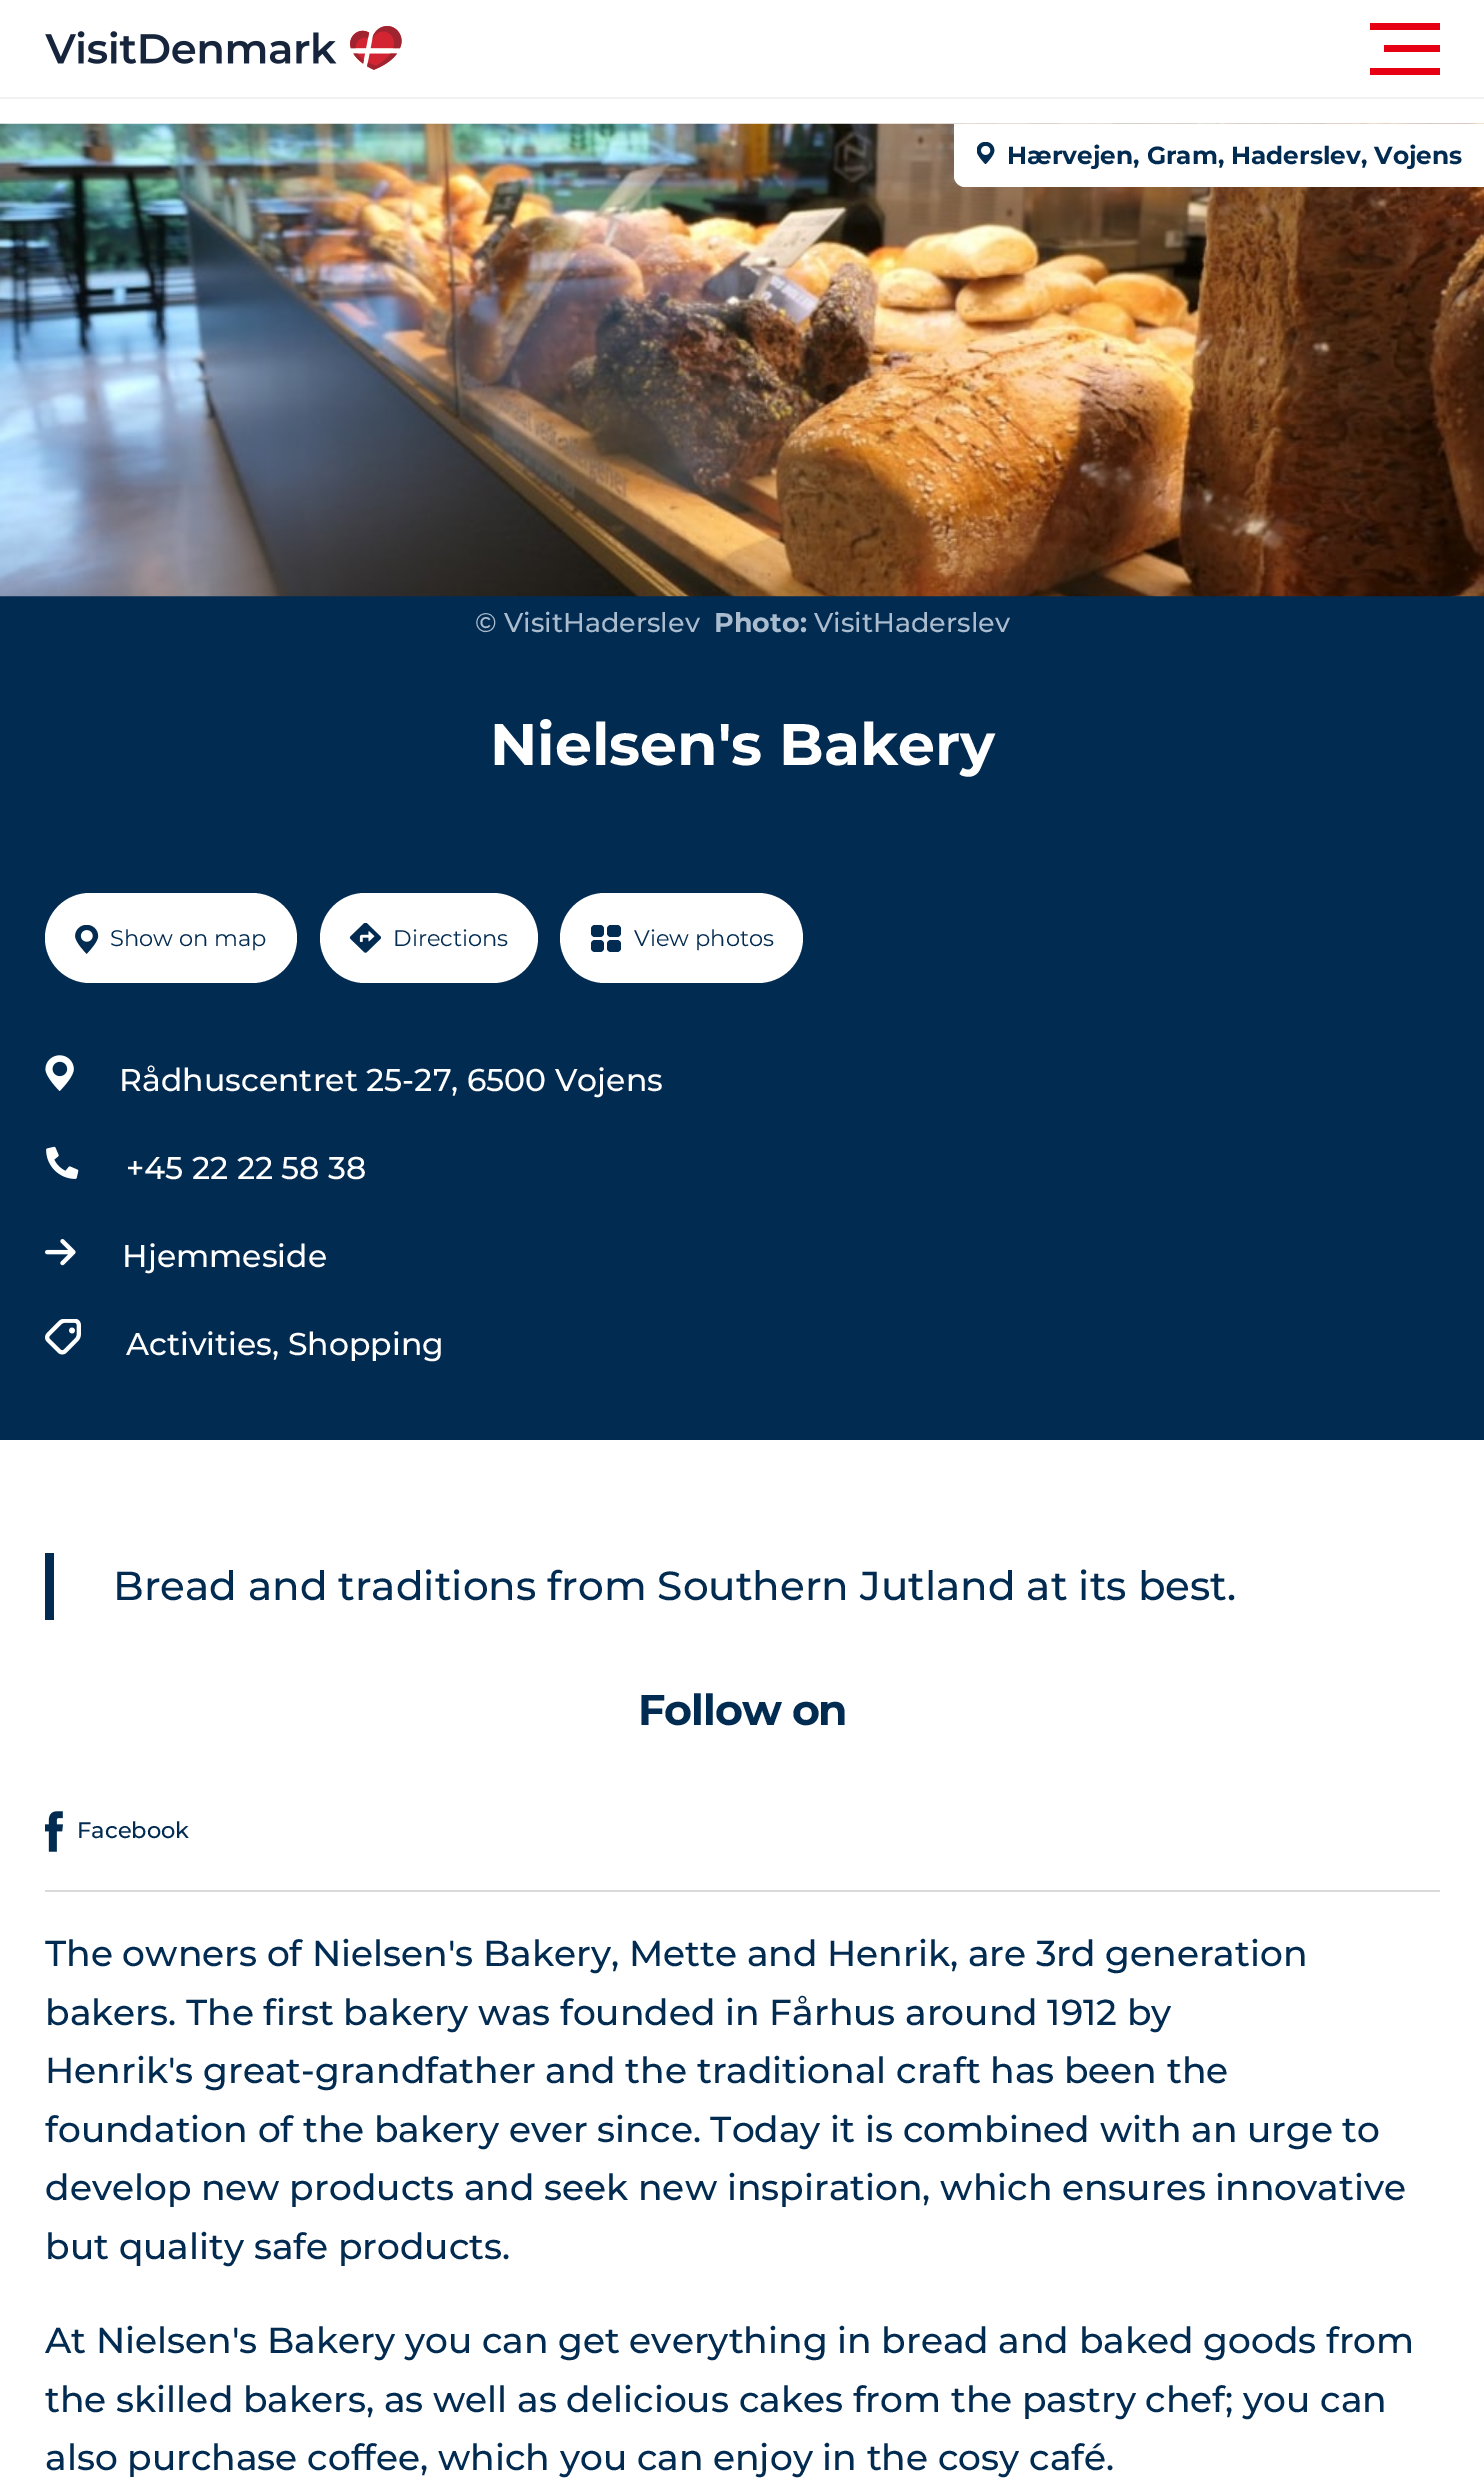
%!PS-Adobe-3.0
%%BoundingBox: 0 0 1484 2484
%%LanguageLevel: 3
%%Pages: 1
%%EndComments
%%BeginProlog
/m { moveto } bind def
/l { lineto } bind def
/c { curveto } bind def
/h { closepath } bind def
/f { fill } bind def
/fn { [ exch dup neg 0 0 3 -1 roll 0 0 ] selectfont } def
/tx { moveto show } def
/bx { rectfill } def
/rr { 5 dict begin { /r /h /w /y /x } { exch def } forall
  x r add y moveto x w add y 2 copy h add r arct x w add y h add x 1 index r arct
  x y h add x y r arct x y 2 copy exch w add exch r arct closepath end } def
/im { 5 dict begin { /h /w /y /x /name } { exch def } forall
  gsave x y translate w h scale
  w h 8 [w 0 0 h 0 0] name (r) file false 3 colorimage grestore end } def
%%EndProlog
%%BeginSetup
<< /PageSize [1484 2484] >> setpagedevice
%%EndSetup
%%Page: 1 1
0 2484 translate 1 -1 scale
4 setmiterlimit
1 setgray
0 0 1484 2484 bx
0.941 0.945 0.953 setrgbcolor
0 97 1484 2 bx
(image0.raw) 45 26 357 44 im
0.906 0 0.075 setrgbcolor
1370 23 70 7 bx
1384 45 56 7 bx
1370 68 70 7 bx
0.008 0.169 0.322 setrgbcolor
0 596 1484 844 bx
(image1.raw) 0 123 1484 474 im
1 setgray
954 124 m 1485 124 l 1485 187 l 965 187 l 959 187 954 182 954 176 c h f
(image2.raw) 977 142 18 22 im
/Montserrat-Bold 24.75 fn
0.008 0.169 0.322 setrgbcolor
(Hærvejen, Gram, Haderslev, Vojens) 1007 164 tx
/Montserrat-Medium 27 fn
0.667 0.737 0.804 setrgbcolor
(© VisitHaderslev) 475 632 tx
/Montserrat-Bold 27 fn
(Photo:) 714 632 tx
/Montserrat-Medium 27 fn
(VisitHaderslev) 814 632 tx
/Montserrat-Bold 58.5 fn
1 setgray
(Nielsen's Bakery) 490 765 tx
45 893 252 90 45 rr f
(image3.raw) 75 925 24 29 im
/Montserrat-Regular 22.5 fn
0.008 0.169 0.322 setrgbcolor
(Show on map) 110 946 tx
1 setgray
320 893 218 90 45 rr f
(image4.raw) 349 923 33 30 im
0.008 0.169 0.322 setrgbcolor
(Directions) 393 946 tx
1 setgray
560 893 243 90 45 rr f
0.008 0.169 0.322 setrgbcolor
607 925 14 12 4 rr f
607 940 14 12 4 rr f
591 925 13 12 4 rr f
591 940 13 12 4 rr f
(View photos) 634 946 tx
(image5.raw) 45 1055 29 36 im
/Montserrat-Medium 31.5 fn
1 setgray
(Rådhuscentret 25-27, 6500 Vojens) 119 1091 tx
(image6.raw) 46 1146 33 33 im
(+45 22 22 58 38) 126 1179 tx
(image7.raw) 45 1239 31 27 im
(Hjemmeside) 122 1267 tx
(image8.raw) 45 1319 36 36 im
(Activities, Shopping) 126 1355 tx
0.008 0.169 0.322 setrgbcolor
45 1553 9 67 bx
/Montserrat-Medium 40.5 fn
(Bread and traditions from Southern Jutland at its best.) 113 1600 tx
0.847 0.855 0.863 setrgbcolor
45 1890 1395 2 bx
/Montserrat-Bold 42.75 fn
0.008 0.169 0.322 setrgbcolor
638 1725 m -1.1 0 (Follow on) ashow
(image9.raw) 45 1811 18 41 im
/Montserrat-Medium 22.5 fn
(Facebook) 77 1838 tx
/Montserrat-Medium 36 fn
(The owners of Nielsen's Bakery, Mette and Henrik, are 3rd generation) 45 1966 tx
(bakers. The first bakery was founded in Fårhus around 1912 by) 45 2025 tx
(Henrik's great-grandfather and the traditional craft has been the) 45 2083 tx
(foundation of the bakery ever since. Today it is combined with an urge to) 45 2142 tx
(develop new products and seek new inspiration, which ensures innovative) 45 2200 tx
(but quality safe products.) 45 2259 tx
(At Nielsen's Bakery you can get everything in bread and baked goods from) 45 2353 tx
(the skilled bakers, as well as delicious cakes from the pastry chef; you can) 45 2412 tx
(also purchase coffee, which you can enjoy in the cosy café.) 45 2470 tx
showpage
%%EOF
